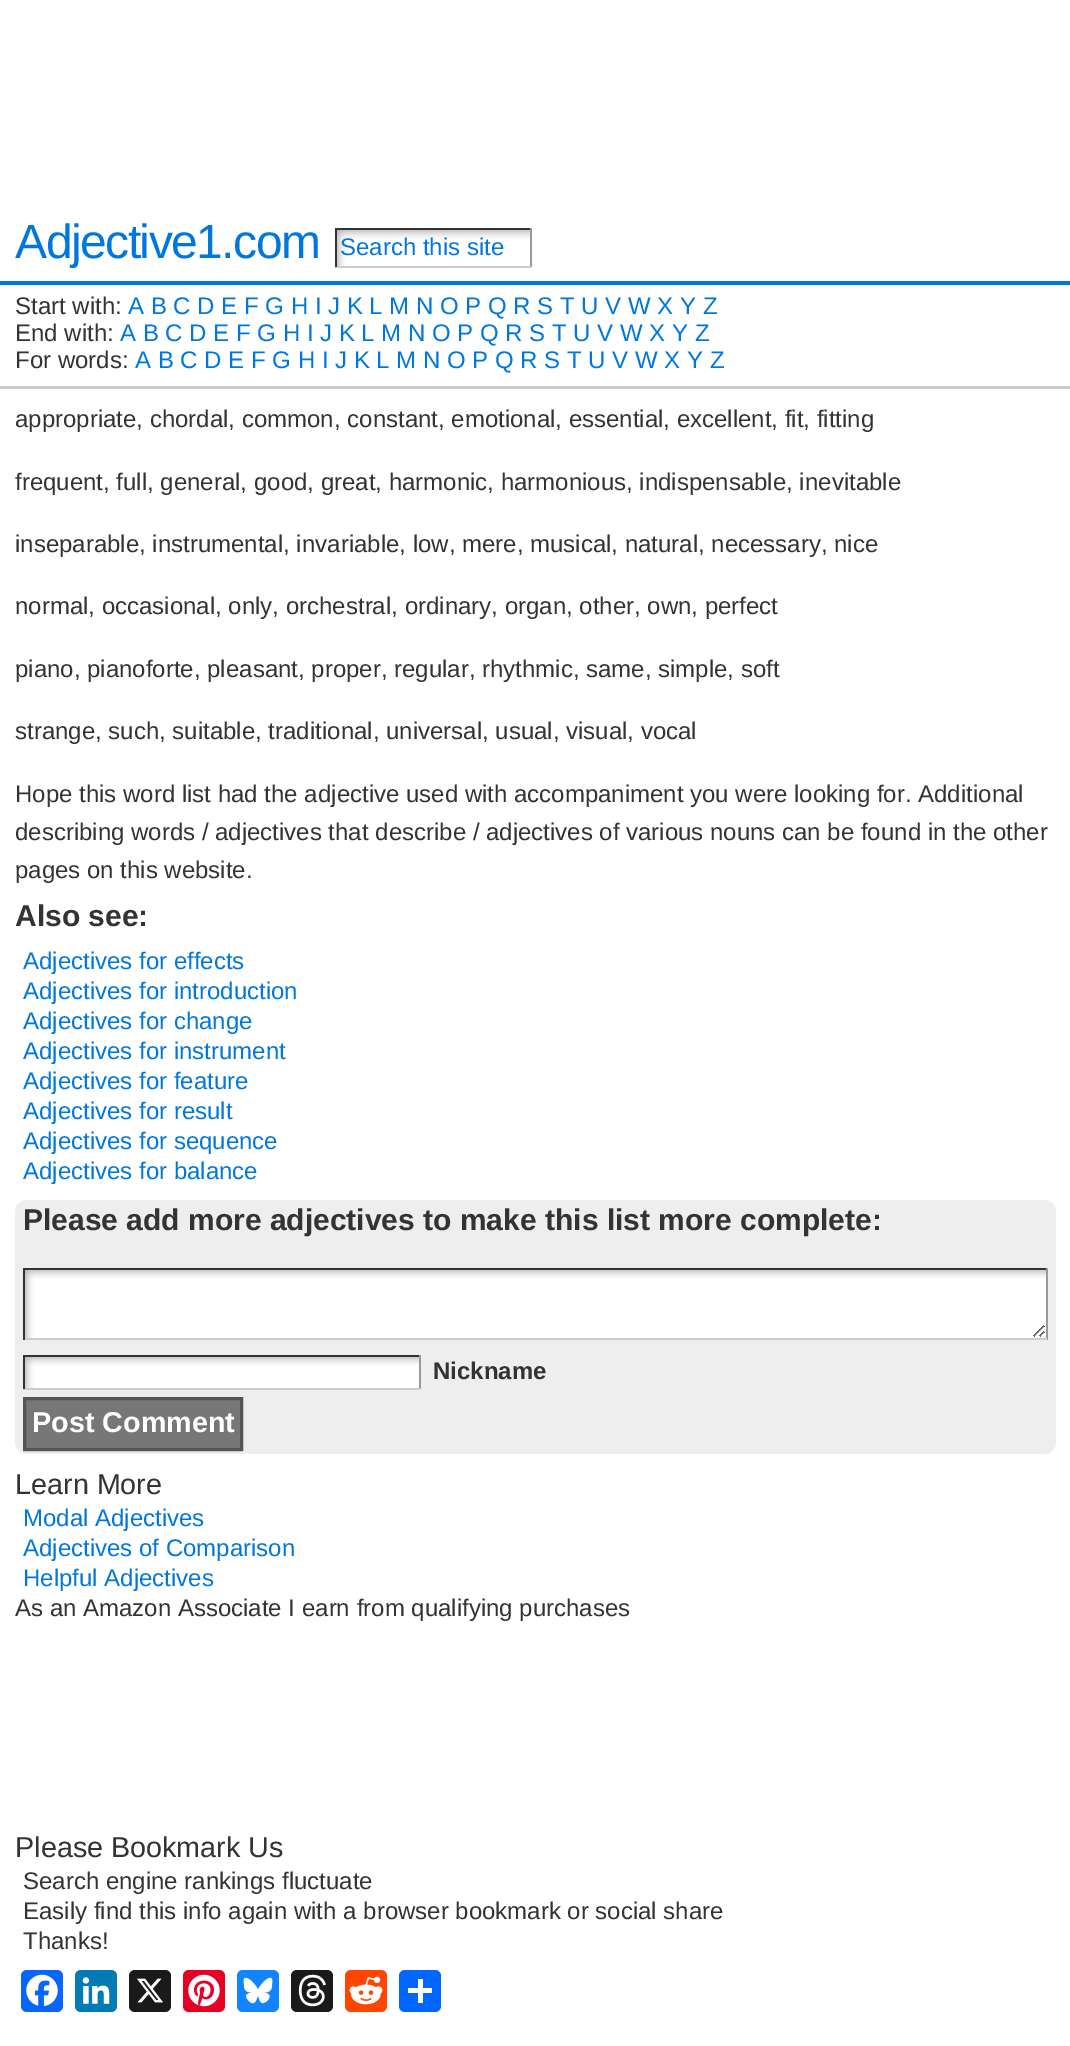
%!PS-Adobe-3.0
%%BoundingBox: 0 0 1070 2046
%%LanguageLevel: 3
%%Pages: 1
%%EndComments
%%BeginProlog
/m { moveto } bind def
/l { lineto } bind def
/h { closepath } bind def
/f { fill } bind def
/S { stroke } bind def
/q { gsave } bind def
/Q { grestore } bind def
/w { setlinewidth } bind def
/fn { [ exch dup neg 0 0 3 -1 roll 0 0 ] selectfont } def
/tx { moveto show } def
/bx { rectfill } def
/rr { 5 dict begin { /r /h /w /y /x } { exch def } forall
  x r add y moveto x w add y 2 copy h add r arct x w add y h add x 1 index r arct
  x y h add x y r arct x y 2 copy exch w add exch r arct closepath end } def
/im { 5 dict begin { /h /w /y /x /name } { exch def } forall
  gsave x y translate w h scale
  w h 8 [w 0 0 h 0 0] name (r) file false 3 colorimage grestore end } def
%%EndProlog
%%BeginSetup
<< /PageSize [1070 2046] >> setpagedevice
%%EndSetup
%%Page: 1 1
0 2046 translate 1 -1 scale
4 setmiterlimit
1 setgray
0 0 1070 2046 bx
/LiberationSans-Regular 48 fn
0 0.467 0.867 setrgbcolor
15 258 m -1.5 0 (Adjective1.com) ashow
(image0.raw) 337 230 193 36 im
0.2 setgray
335 228 196 2 bx
0.6 setgray
530 228 2 39 bx
0.8 setgray
335 266 196 2 bx
0.2 setgray
335 228 2 39 bx
/LiberationSans-Regular 24 fn
0 0.467 0.867 setrgbcolor
(Search this site) 340 255 tx
0 281 1070 4 bx
0.2 setgray
(Start with:) 15 314 tx
0 0.467 0.867 setrgbcolor
(A B C D E F G H I J K L M N O P Q R S T U V W X Y Z) 128 314 tx
0.2 setgray
(End with:) 15 341 tx
0 0.467 0.867 setrgbcolor
(A B C D E F G H I J K L M N O P Q R S T U V W X Y Z) 120 341 tx
0.2 setgray
(For words:) 15 368 tx
0 0.467 0.867 setrgbcolor
(A B C D E F G H I J K L M N O P Q R S T U V W X Y Z) 135 368 tx
0.8 setgray
0 386 1070 3 bx
0.2 setgray
(appropriate, chordal, common, constant, emotional, essential, excellent, fit, fitting) 15 427 tx
(frequent, full, general, good, great, harmonic, harmonious, indispensable, inevitable) 15 490 tx
(inseparable, instrumental, invariable, low, mere, musical, natural, necessary, nice) 15 552 tx
(normal, occasional, only, orchestral, ordinary, organ, other, own, perfect) 15 614 tx
(piano, pianoforte, pleasant, proper, regular, rhythmic, same, simple, soft) 15 677 tx
(strange, such, suitable, traditional, universal, usual, visual, vocal) 15 739 tx
(Hope this word list had the adjective used with accompaniment you were looking for. Additional) 15 802 tx
(describing words / adjectives that describe / adjectives of various nouns can be found in the other) 15 840 tx
(pages on this website.) 15 878 tx
/LiberationSans-Bold 30 fn
(Also see:) 15 926 tx
/LiberationSans-Regular 24 fn
0 0.467 0.867 setrgbcolor
(Adjectives for effects) 23 969 tx
(Adjectives for introduction) 23 999 tx
(Adjectives for change) 23 1029 tx
(Adjectives for instrument) 23 1059 tx
(Adjectives for feature) 23 1089 tx
(Adjectives for result) 23 1119 tx
(Adjectives for sequence) 23 1149 tx
(Adjectives for balance) 23 1179 tx
0.933 setgray
15 1200 1041 254 12 rr f
/LiberationSans-Bold 30 fn
0.2 setgray
(Please add more adjectives to make this list more complete:) 23 1230 tx
(image1.raw) 25 1270 1021 68 im
23 1268 1024 2 bx
0.6 setgray
1046 1268 2 72 bx
0.8 setgray
23 1338 1024 2 bx
0.2 setgray
23 1268 2 72 bx
(image2.raw) 25 1357 394 31 im
23 1355 397 2 bx
0.6 setgray
419 1355 2 34 bx
0.8 setgray
23 1388 397 2 bx
0.2 setgray
23 1355 2 34 bx
/LiberationSans-Bold 24 fn
(Nickname) 433 1379 tx
0.467 setgray
24.5 1398.5 m 241.5 1398.5 l 241.5 1449.5 l 24.5 1449.5 l h q f Q
0.333 setgray
3 w
S
/LiberationSans-Bold 28.75 fn
1 setgray
(Post Comment) 32 1432 tx
/LiberationSans-Regular 28.75 fn
0.2 setgray
(Learn More) 15 1494 tx
/LiberationSans-Regular 24 fn
0 0.467 0.867 setrgbcolor
(Modal Adjectives) 23 1526 tx
(Adjectives of Comparison) 23 1556 tx
(Helpful Adjectives) 23 1586 tx
0.2 setgray
(As an Amazon Associate I earn from qualifying purchases) 15 1616 tx
/LiberationSans-Regular 28.75 fn
(Please Bookmark Us) 15 1857 tx
/LiberationSans-Regular 24 fn
(Search engine rankings fluctuate) 23 1889 tx
(Easily find this info again with a browser bookmark or social share) 23 1919 tx
(Thanks!) 23 1949 tx
0.031 0.4 1 setrgbcolor
21 1970 42 42 6 rr f
(image3.raw) 26 1974 32 33 im
0 0.482 0.71 setrgbcolor
75 1970 42 42 6 rr f
(image4.raw) 82 1977 28 27 im
0.102 setgray
129 1970 42 42 6 rr f
(image5.raw) 137 1978 26 25 im
0.902 0 0.137 setrgbcolor
183 1970 42 42 6 rr f
(image6.raw) 188 1974 32 33 im
0.071 0.522 0.996 setrgbcolor
237 1970 42 42 6 rr f
(image7.raw) 243 1977 30 27 im
0.102 setgray
291 1970 42 42 6 rr f
(image8.raw) 298 1974 28 33 im
1 0.271 0 setrgbcolor
345 1970 42 42 6 rr f
(image9.raw) 349 1976 34 29 im
0.004 0.4 1 setrgbcolor
399 1970 42 42 6 rr f
1 setgray
418 1979 5 24 bx
408 1988 24 5 bx
showpage
%%EOF
